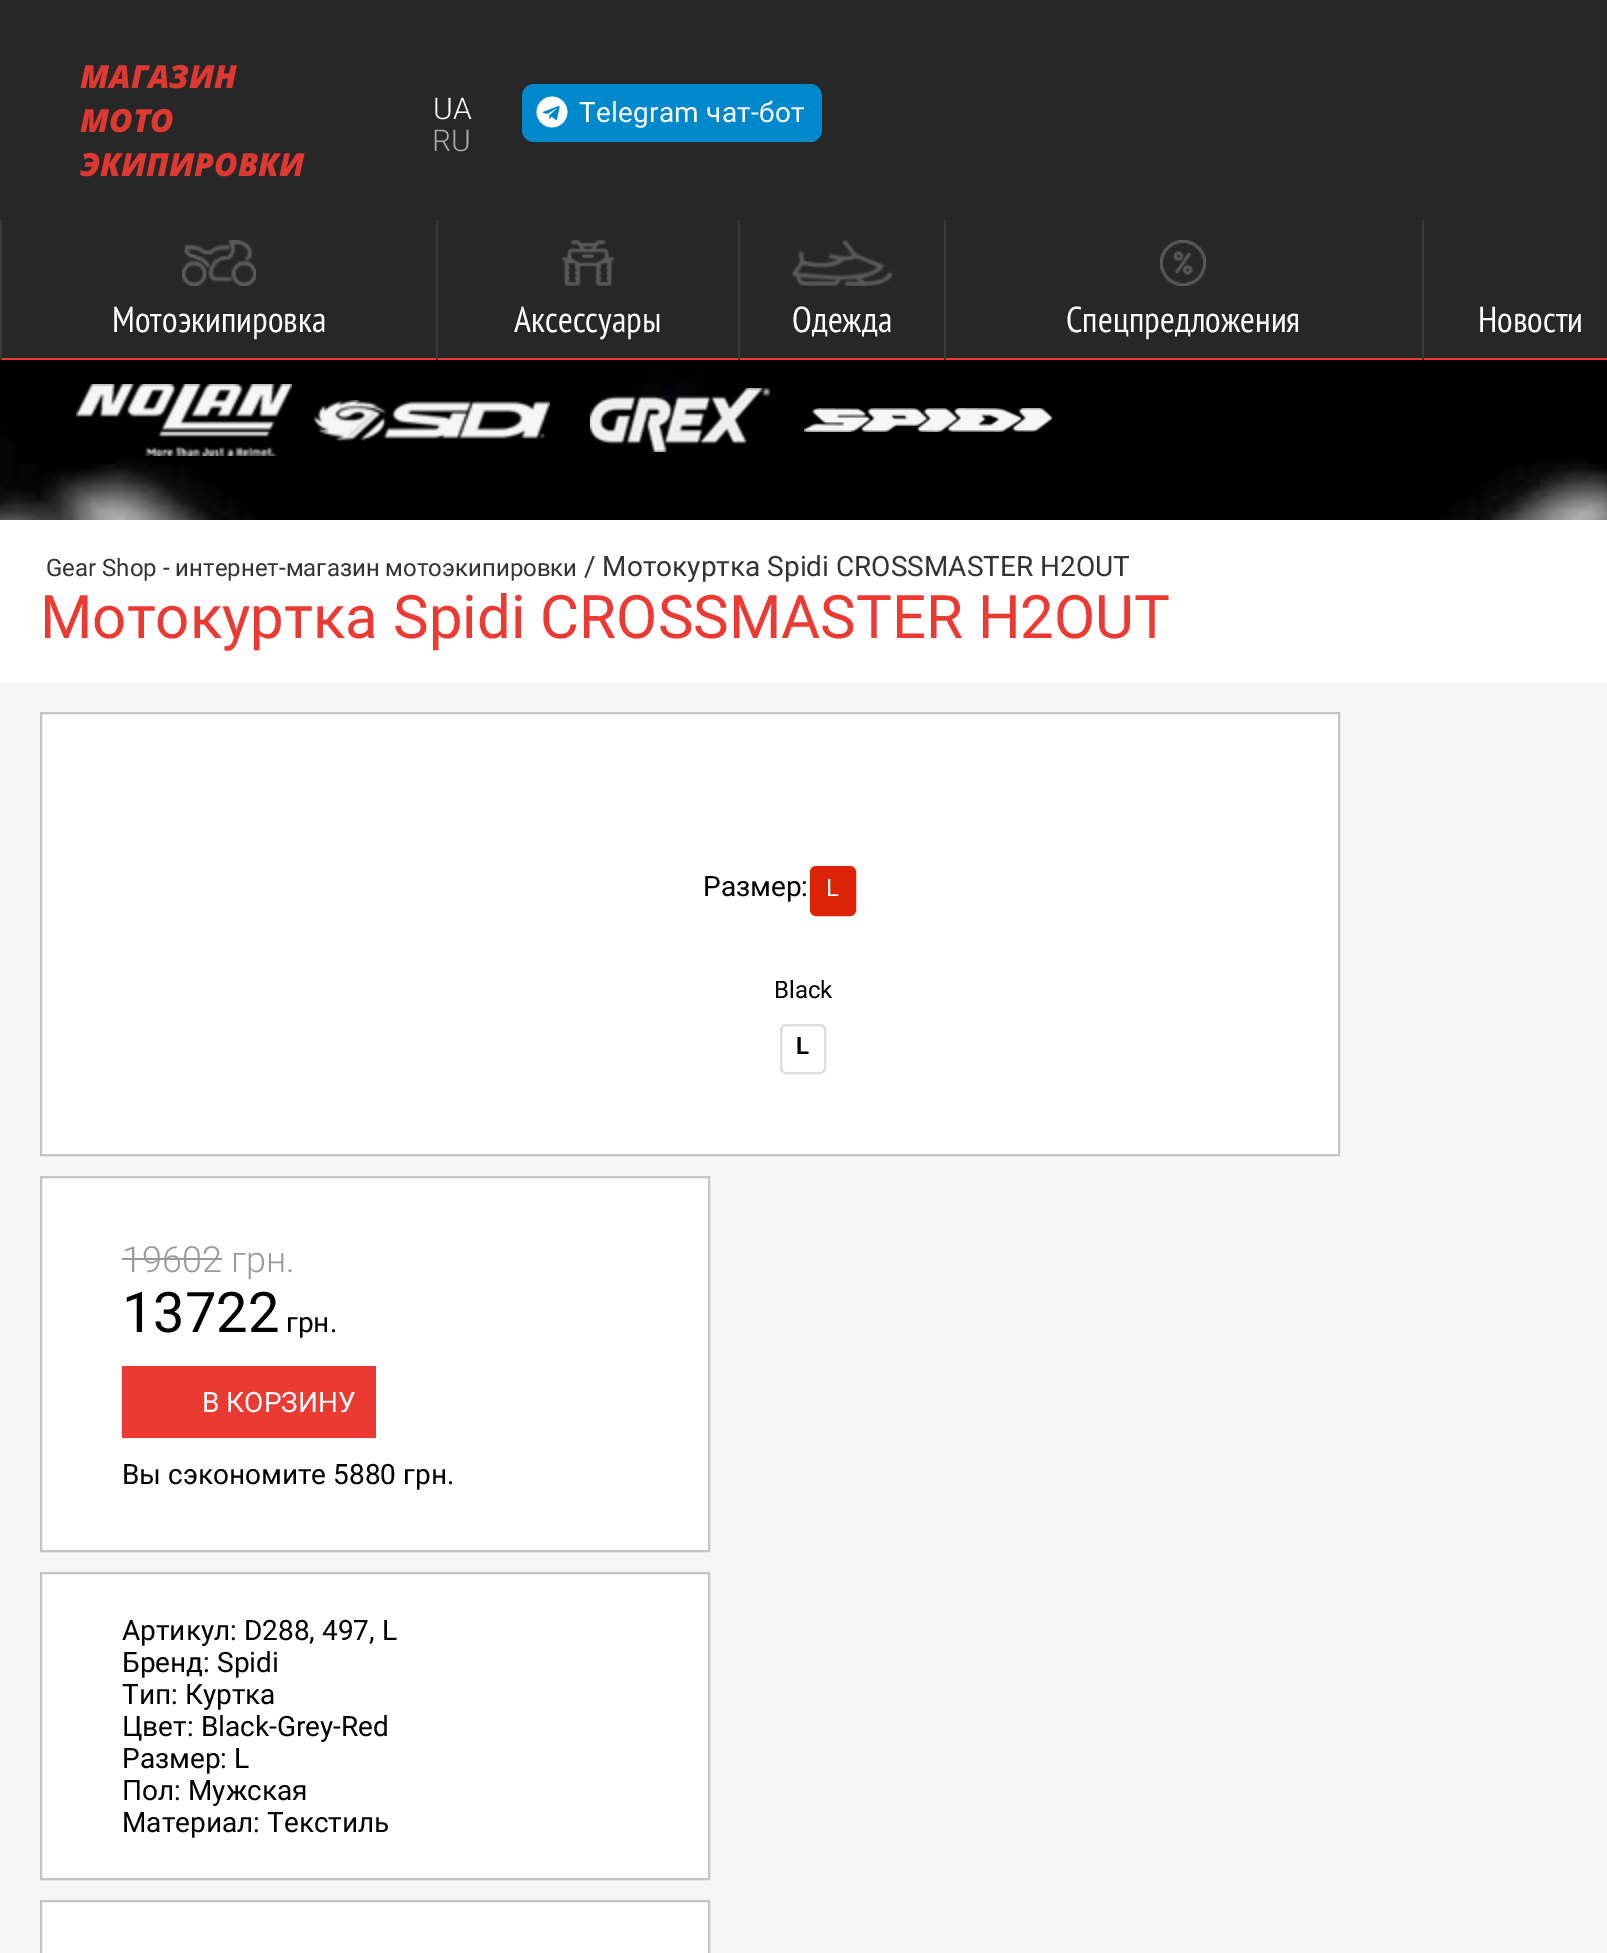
%!PS-Adobe-3.0
%%BoundingBox: 0 0 1607 1953
%%LanguageLevel: 3
%%Pages: 1
%%EndComments
%%BeginProlog
/m { moveto } bind def
/l { lineto } bind def
/h { closepath } bind def
/f { fill } bind def
/S { stroke } bind def
/q { gsave } bind def
/Q { grestore } bind def
/w { setlinewidth } bind def
/fn { [ exch dup neg 0 0 3 -1 roll 0 0 ] selectfont } def
/tx { moveto show } def
/bx { rectfill } def
/rr { 5 dict begin { /r /h /w /y /x } { exch def } forall
  x r add y moveto x w add y 2 copy h add r arct x w add y h add x 1 index r arct
  x y h add x y r arct x y 2 copy exch w add exch r arct closepath end } def
/im { 5 dict begin { /h /w /y /x /name } { exch def } forall
  gsave x y translate w h scale
  w h 8 [w 0 0 h 0 0] name (r) file false 3 colorimage grestore end } def
%%EndProlog
%%BeginSetup
<< /PageSize [1607 1953] >> setpagedevice
%%EndSetup
%%Page: 1 1
0 1953 translate 1 -1 scale
4 setmiterlimit
1 setgray
0 0 1607 1953 bx
(image0.raw) 0 360 1607 160 im
0.153 setgray
0 0 1607 220 bx
/OpenSans-ExtraBoldItalic 32 fn
0.867 0.224 0.196 setrgbcolor
(МАГАЗИН) 80 88 tx
(МОТО) 80 132 tx
(ЭКИПИРОВКИ) 80 176 tx
/Roboto-Light 30 fn
1 setgray
(UA) 433 119 tx
0.667 setgray
(RU) 432 151 tx
0 0.533 0.8 setrgbcolor
522 84 300 58 12 rr f
(image1.raw) 536 96 32 32 im
/Roboto-Regular 28 fn
1 setgray
579 122 m 0.25 0 (Telegram чат-бот) ashow
0.153 setgray
2 220 1605 138 bx
0.925 0.227 0.196 setrgbcolor
0 358 1607 2 bx
0.224 setgray
0 220 2 140 bx
436 220 2 140 bx
(image2.raw) 182 240 74 46 im
/PTSansNarrow-Regular 36 fn
1 setgray
(Мотоэкипировка) 112 332 tx
0.224 setgray
738 220 2 140 bx
(image3.raw) 562 240 52 46 im
1 setgray
(Аксессуары) 514 332 tx
0.224 setgray
944 220 2 140 bx
(image4.raw) 792 240 100 46 im
1 setgray
(Одежда) 792 332 tx
0.224 setgray
1422 220 2 140 bx
(image5.raw) 1160 240 46 46 im
1 setgray
(Спецпредложения) 1066 332 tx
(Новости) 1478 332 tx
(image6.raw) 76 384 216 72 im
(image7.raw) 314 400 236 42 im
(image8.raw) 590 388 180 64 im
(image9.raw) 804 408 248 24 im
/Roboto-Regular 24 fn
0.2 setgray
(Gear Shop - интернет-магазин мотоэкипировки) 46 576 tx
/Roboto-Regular 28 fn
(/ Мотокуртка Spidi CROSSMASTER H2OUT) 584 576 tx
/Roboto-Regular 60 fn
0.925 0.227 0.196 setrgbcolor
(Мотокуртка Spidi CROSSMASTER H2OUT) 40 638 tx
0.965 setgray
0 682 1607 1271 bx
1 setgray
41 713 m 1339 713 l 1339 1155 l 41 1155 l h q f Q
0.769 setgray
2 w
S
/Roboto-Regular 28 fn
0 setgray
(Размер:) 703 896 tx
0.863 0.137 0.031 setrgbcolor
811 867 44 48 5 rr q f Q
S
/Roboto-Regular 24 fn
1 setgray
(L) 826 896 tx
0 setgray
(Black) 774 998 tx
0.867 setgray
781 1025 44 48 5 rr S
/Roboto-SemiBold 24 fn
0 setgray
(L) 796 1054 tx
1 setgray
41 1177 m 709 1177 l 709 1551 l 41 1551 l h q f Q
0.769 setgray
S
/Roboto-Light 36 fn
0.6 setgray
(19602 грн.) 122 1272 tx
122 1258 100 2 bx
/Roboto-Regular 56 fn
0 setgray
(13722) 122 1332 tx
/Roboto-Regular 28 fn
(грн.) 286 1332 tx
0.925 0.227 0.196 setrgbcolor
122 1366 254 72 bx
1 setgray
(В КОРЗИНУ) 202 1412 tx
0 setgray
(Вы сэкономите 5880 грн.) 122 1484 tx
1 setgray
41 1573 m 709 1573 l 709 1879 l 41 1879 l h q f Q
0.769 setgray
S
0 setgray
(Артикул: D288, 497, L) 122 1640 tx
(Бренд: Spidi) 122 1672 tx
(Тип: Куртка) 122 1704 tx
(Цвет: Black-Grey-Red) 122 1736 tx
(Размер: L) 122 1768 tx
(Пол: Мужская) 122 1800 tx
(Материал: Текстиль) 122 1832 tx
1 setgray
41 1901 m 709 1901 l 709 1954 l 41 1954 l h q f Q
0.769 setgray
S
showpage
%%EOF
